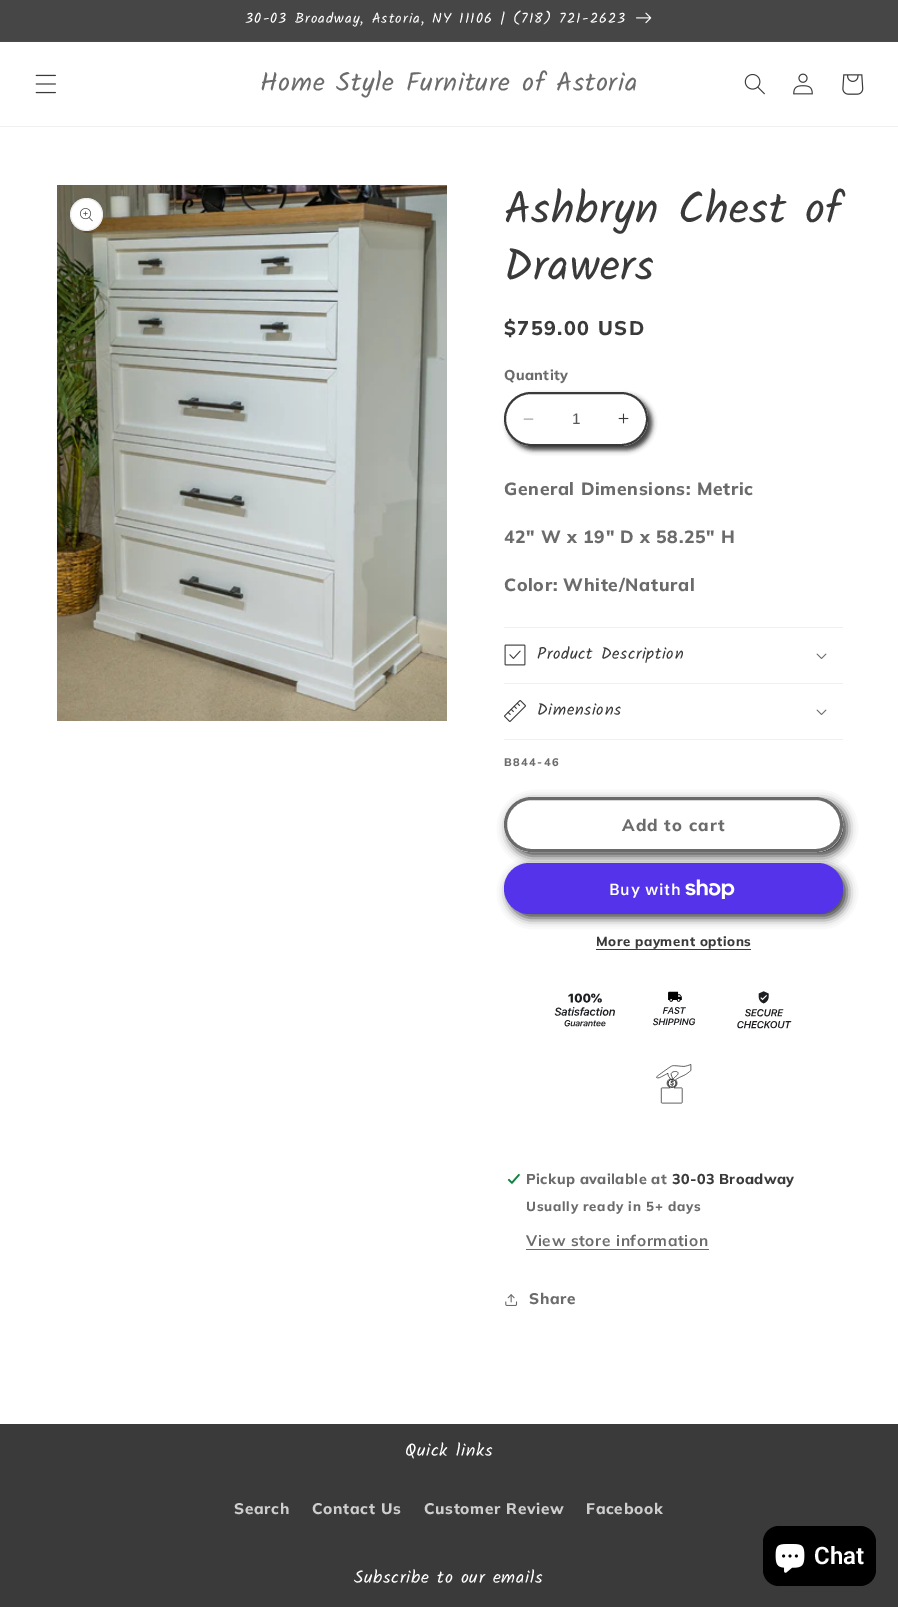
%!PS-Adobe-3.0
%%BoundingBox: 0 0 898 1607
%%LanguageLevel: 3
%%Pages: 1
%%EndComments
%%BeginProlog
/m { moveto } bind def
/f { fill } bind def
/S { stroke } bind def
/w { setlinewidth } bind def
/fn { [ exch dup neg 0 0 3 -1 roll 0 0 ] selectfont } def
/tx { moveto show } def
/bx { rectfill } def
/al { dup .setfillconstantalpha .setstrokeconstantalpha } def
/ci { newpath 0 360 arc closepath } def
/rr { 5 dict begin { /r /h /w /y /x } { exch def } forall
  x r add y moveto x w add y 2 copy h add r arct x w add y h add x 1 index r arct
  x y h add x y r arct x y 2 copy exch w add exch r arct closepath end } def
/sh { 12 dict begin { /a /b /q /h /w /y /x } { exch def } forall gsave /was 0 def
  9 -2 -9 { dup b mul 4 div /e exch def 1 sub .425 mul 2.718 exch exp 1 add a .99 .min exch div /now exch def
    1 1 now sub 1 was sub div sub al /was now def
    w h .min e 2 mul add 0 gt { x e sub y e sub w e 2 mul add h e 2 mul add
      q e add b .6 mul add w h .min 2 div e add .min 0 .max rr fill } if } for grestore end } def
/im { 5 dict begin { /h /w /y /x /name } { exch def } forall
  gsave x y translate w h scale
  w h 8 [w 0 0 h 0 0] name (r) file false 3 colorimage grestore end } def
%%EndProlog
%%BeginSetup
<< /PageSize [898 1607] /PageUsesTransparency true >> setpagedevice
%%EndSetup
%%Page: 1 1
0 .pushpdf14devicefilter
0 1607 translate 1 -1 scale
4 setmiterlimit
1 setgray
0 0 898 1607 bx
0.29 setgray
0 41 898 1 bx
0.275 setgray
0 0 898 41 bx
/Kalam-Regular 14.3 fn
1 setgray
245 23 m 1.1 0 (30-03 Broadway, Astoria, NY 11106 | \(718\) 721-2623) ashow
(image0.raw) 636 12 16 12 im
0.937 setgray
0 126 898 1 bx
(image1.raw) 35 74 21 20 im
/Kalam-Regular 26.4 fn
0.42 setgray
260 91 m 0.65 0 (Home Style Furniture of Astoria) ashow
(image2.raw) 744 73 21 22 im
(image3.raw) 793 73 20 22 im
(image4.raw) 842 74 22 21 im
(image5.raw) 57 185 390 536 im
1 setgray
86.5 214.5 16.5 ci f
0.1 al
0.227 setgray
86.5 214.5 16 ci S
1 al
(image6.raw) 80 208 13 14 im
/Kalam-Regular 44 fn
504 223 m 0.65 0 (Ashbryn Chest of) ashow
504 280 m 0.65 0 (Drawers) ashow
/Muli-ExtraBold 19.75 fn
504 335 m 1.5 0 ($759.00 USD) ashow
/Muli-ExtraBold 14.3 fn
0.42 setgray
504 380 m 0.4 0 (Quantity) ashow
0.227 setgray
508 396 144 54 27 2.5 1 sh
1 setgray
504 392 144 54 27 rr f
(image7.raw) 523 418 11 2 im
(image8.raw) 618 413 11 11 im
0.227 setgray
2 w
505 393 142 52 26 rr S
/LiberationSans-Regular 15.4 fn
0.345 setgray
(1) 572 424 tx
/Muli-ExtraBold 17.6 fn
0.42 setgray
504 495 m 0.65 0 (General Dimensions: Metric) ashow
504 543 m 0.65 0 (42" W x 19" D x 58.25" H) ashow
504 591 m 0.65 0 (Color: White/Natural) ashow
0.937 setgray
504 627 339 1 bx
504 683 339 1 bx
(image9.raw) 504 644 22 22 im
/Kalam-Regular 16.5 fn
0.227 setgray
537 659 m 0.65 0 (Product Description) ashow
(image10.raw) 816 653 11 6 im
0.937 setgray
504 739 339 1 bx
(image11.raw) 504 700 22 22 im
0.227 setgray
537 715 m 0.65 0 (Dimensions) ashow
(image10.raw) 816 709 11 6 im
/Muli-ExtraBold 11 fn
0.42 setgray
504 766 m 1.5 0 (B844-46) ashow
0.227 setgray
508 801 339 55 27.5 5 1 sh
508 867 339 51 25.5 5 1 sh
1 setgray
504 797 339 55 27.5 rr f
3 w
505.5 798.5 336 52 26 rr S
0.416 setgray
505.5 798.5 336 52 26 rr S
/Muli-ExtraBold 16.5 fn
0.42 setgray
622 831 m 1.1 0 (Add to cart) ashow
0.329 0.2 0.922 setrgbcolor
504 863 339 51 25.5 rr f
/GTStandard-SemiBold 16 fn
1 setgray
609 895 m 0.65 0 (Buy with) ashow
(image12.raw) 685 879 50 20 im
/Muli-ExtraBold 13.25 fn
0.227 setgray
596 946 m 0.55 0 (More payment options) ashow
596 949 155 1 bx
(image13.raw) 554 991 238 113 im
(image14.raw) 507 1173 14 12 im
/Muli-ExtraBold 14.3 fn
0.42 setgray
526 1184 m 0.4 0 (Pickup available at) ashow
0.227 setgray
672 1184 m 0.4 0 (30-03 Broadway) ashow
/Muli-ExtraBold 13.25 fn
0.42 setgray
526 1211 m 0.75 0 (Usually ready in 5+ days) ashow
/Muli-Bold 15.4 fn
526 1246 m 0.65 0 (View store information) ashow
526 1249 183 1 bx
(image15.raw) 505 1294 13 12 im
/Muli-ExtraBold 15.4 fn
529 1304 m 0.65 0 (Share) ashow
0.227 setgray
0 1424 898 183 bx
/Kalam-Regular 17.6 fn
1 setgray
405 1456 m 0.65 0 (Quick links) ashow
/Muli-ExtraBold 15.4 fn
0.808 setgray
234 1514 m 0.65 0 (Search) ashow
312 1514 m 0.65 0 (Contact Us) ashow
424 1514 m 0.65 0 (Customer Review) ashow
586 1514 m 0.65 0 (Facebook) ashow
/Kalam-Regular 17.6 fn
1 setgray
354 1583 m 0.65 0 (Subscribe to our emails) ashow
0 setgray
763 1526 113 60 16 rr f
(image16.raw) 775 1544 30 29 im
/Roboto-SemiBold 24 fn
1 setgray
(Chat) 814 1564 tx
.poppdf14devicefilter showpage
%%EOF
